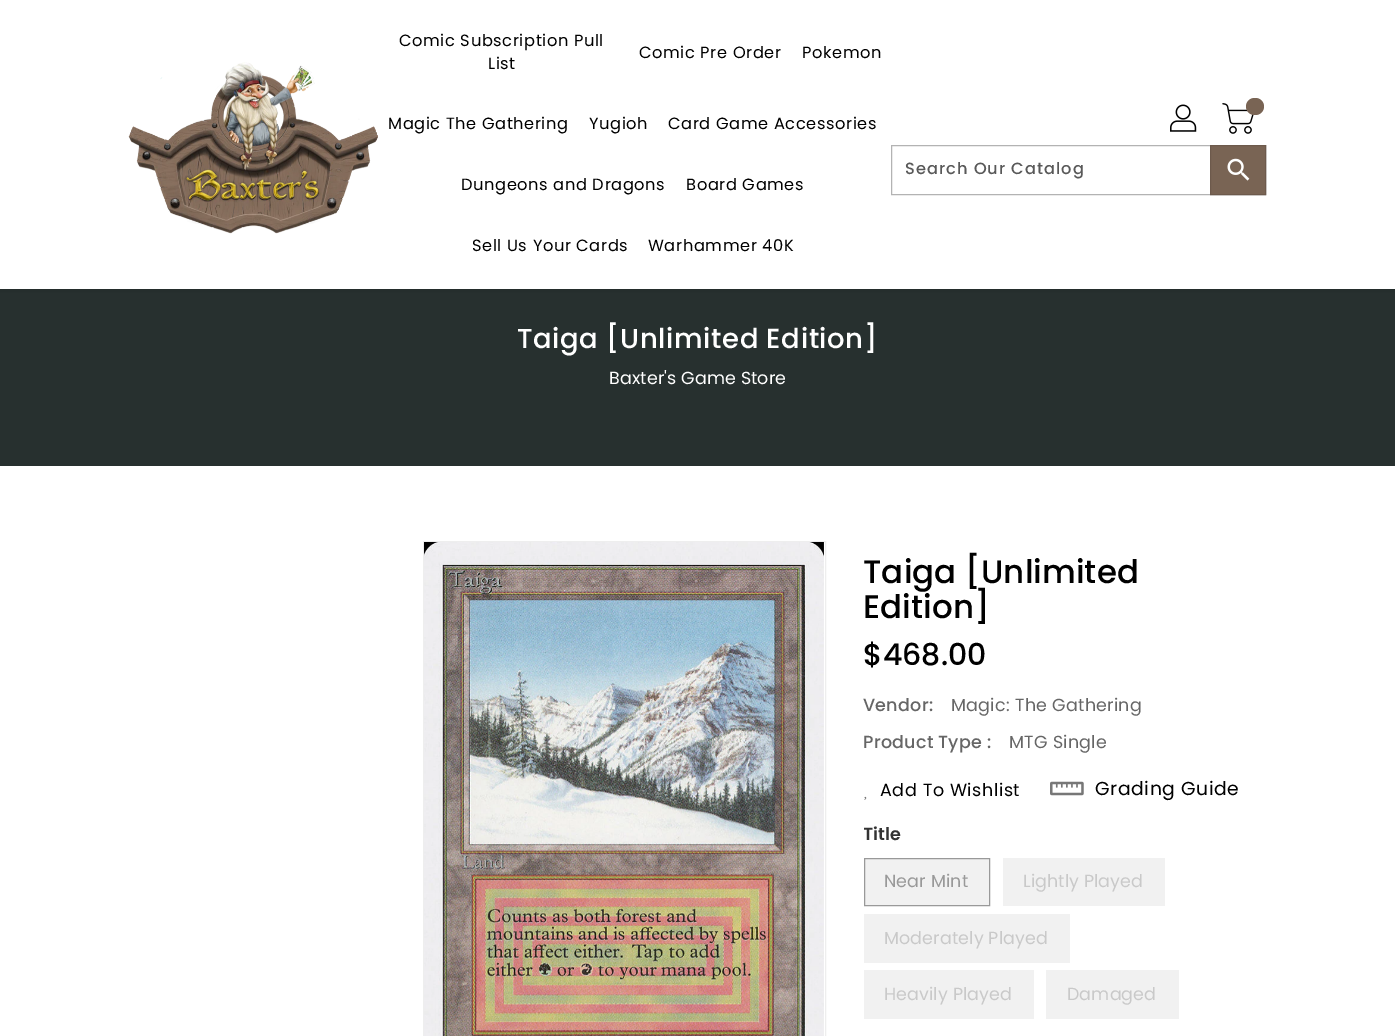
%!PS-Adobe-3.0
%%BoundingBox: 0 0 1395 1036
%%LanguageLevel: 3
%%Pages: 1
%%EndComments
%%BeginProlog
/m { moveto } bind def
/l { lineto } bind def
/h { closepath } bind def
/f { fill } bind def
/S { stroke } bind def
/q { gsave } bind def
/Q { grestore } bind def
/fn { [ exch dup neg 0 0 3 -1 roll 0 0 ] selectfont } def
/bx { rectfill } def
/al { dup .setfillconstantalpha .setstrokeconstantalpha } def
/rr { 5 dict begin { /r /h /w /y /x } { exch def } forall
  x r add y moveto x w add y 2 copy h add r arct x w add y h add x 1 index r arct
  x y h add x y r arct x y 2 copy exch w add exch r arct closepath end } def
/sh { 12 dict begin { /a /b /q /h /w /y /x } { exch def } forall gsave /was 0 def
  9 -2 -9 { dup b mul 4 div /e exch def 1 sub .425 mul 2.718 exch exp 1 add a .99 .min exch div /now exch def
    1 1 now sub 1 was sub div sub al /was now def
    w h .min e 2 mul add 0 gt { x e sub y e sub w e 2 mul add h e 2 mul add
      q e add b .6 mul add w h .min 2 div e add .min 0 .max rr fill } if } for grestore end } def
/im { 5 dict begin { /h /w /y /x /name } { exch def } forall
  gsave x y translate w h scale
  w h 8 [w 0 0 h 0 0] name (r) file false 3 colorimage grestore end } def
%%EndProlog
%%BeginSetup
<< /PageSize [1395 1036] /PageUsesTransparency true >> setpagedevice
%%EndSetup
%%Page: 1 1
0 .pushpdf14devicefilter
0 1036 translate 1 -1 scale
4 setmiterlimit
1 setgray
0 0 1395 1036 bx
0.153 0.188 0.184 setrgbcolor
0 289 1395 177 bx
0 setgray
-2 -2 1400 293 0 3 0.1 sh
1 setgray
0 0 1395 289 bx
(image0.raw) 128 62 250 172 im
/Poppins-Regular 16.25 fn
0 setgray
399 46 m 0.6 0 (Comic Subscription Pull) ashow
488 69 m 0.6 0 (List) ashow
639 58 m 0.6 0 (Comic Pre Order) ashow
802 58 m 0.6 0 (Pokemon) ashow
388 129 m 0.6 0 (Magic The Gathering) ashow
589 129 m 0.6 0 (Yugioh) ashow
668 129 m 0.6 0 (Card Game Accessories) ashow
461 190 m 0.6 0 (Dungeons and Dragons) ashow
686 190 m 0.6 0 (Board Games) ashow
472 251 m 0.6 0 (Sell Us Your Cards) ashow
648 251 m 0.6 0 (Warhammer 40K) ashow
(image1.raw) 1170 104 27 28 im
(image2.raw) 1222 103 32 31 im
0.475 0.392 0.329 setrgbcolor
1246 98 18 17 8.5 rr f
0.702 setgray
891.5 145.5 374 49 rectstroke
/Poppins-Medium 16.25 fn
0.349 setgray
905 174 m 1 0 (Search Our Catalog) ashow
0.475 0.392 0.329 setrgbcolor
1210.5 145.5 m 1265.5 145.5 l 1265.5 194.5 l 1210.5 194.5 l h q f Q
0.427 0.353 0.298 setrgbcolor
S
(image3.raw) 1227 158 23 23 im
/Poppins-Medium 27.5 fn
1 setgray
517 348 m 0.6 0 (Taiga [Unlimited Edition]) ashow
/Poppins-Regular 17.5 fn
609 384 m 0.1 0 (Baxter's Game Store) ashow
0.933 setgray
423.5 541.5 402 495 rectstroke
(image4.raw) 424 542 400 494 im
/Poppins-Medium 32.5 fn
0 setgray
863 583 m 0.1 0 (Taiga [Unlimited) ashow
863 618 m 0.1 0 (Edition]) ashow
/Poppins-Medium 30 fn
863 665 m 0.1 0 ($468.00) ashow
/Poppins-Medium 17.5 fn
0.4 setgray
863 711 m 0.25 0 (Vendor:) ashow
/Poppins-Regular 17.5 fn
951 711 m 0.25 0 (Magic: The Gathering) ashow
/Poppins-Medium 17.5 fn
863 748 m 0.25 0 (Product Type :) ashow
/Poppins-Regular 17.5 fn
1009 748 m 0.25 0 (MTG Single) ashow
0 setgray
880 796 m 0.6 0 (Add To Wishlist) ashow
(image5.raw) 864 796 3 4 im
(image6.raw) 1050 781 34 15 im
/Poppins-Regular 18.75 fn
1095 795 m 0.6 0 (Grading Guide) ashow
q
864 821 396 205 rectclip
/Poppins-SemiBold 17.5 fn
0.2 setgray
863 840 m 0.1 0 (Title) ashow
Q
0.945 setgray
864.5 858.5 m 989.5 858.5 l 989.5 905.5 l 864.5 905.5 l h q f Q
0.6 setgray
S
/Poppins-Regular 17.5 fn
884 887 m 0.1 0 (Near Mint) ashow
0.945 setgray
1003 858 162 48 bx
0.788 setgray
1023 887 m 0.1 0 (Lightly Played) ashow
0.945 setgray
864 914 206 49 bx
0.788 setgray
884 944 m 0.1 0 (Moderately Played) ashow
0.945 setgray
864 970 170 49 bx
0.788 setgray
884 1000 m 0.1 0 (Heavily Played) ashow
0.945 setgray
1046 970 133 49 bx
0.788 setgray
1067 1000 m 0.1 0 (Damaged) ashow
.poppdf14devicefilter showpage
%%EOF
